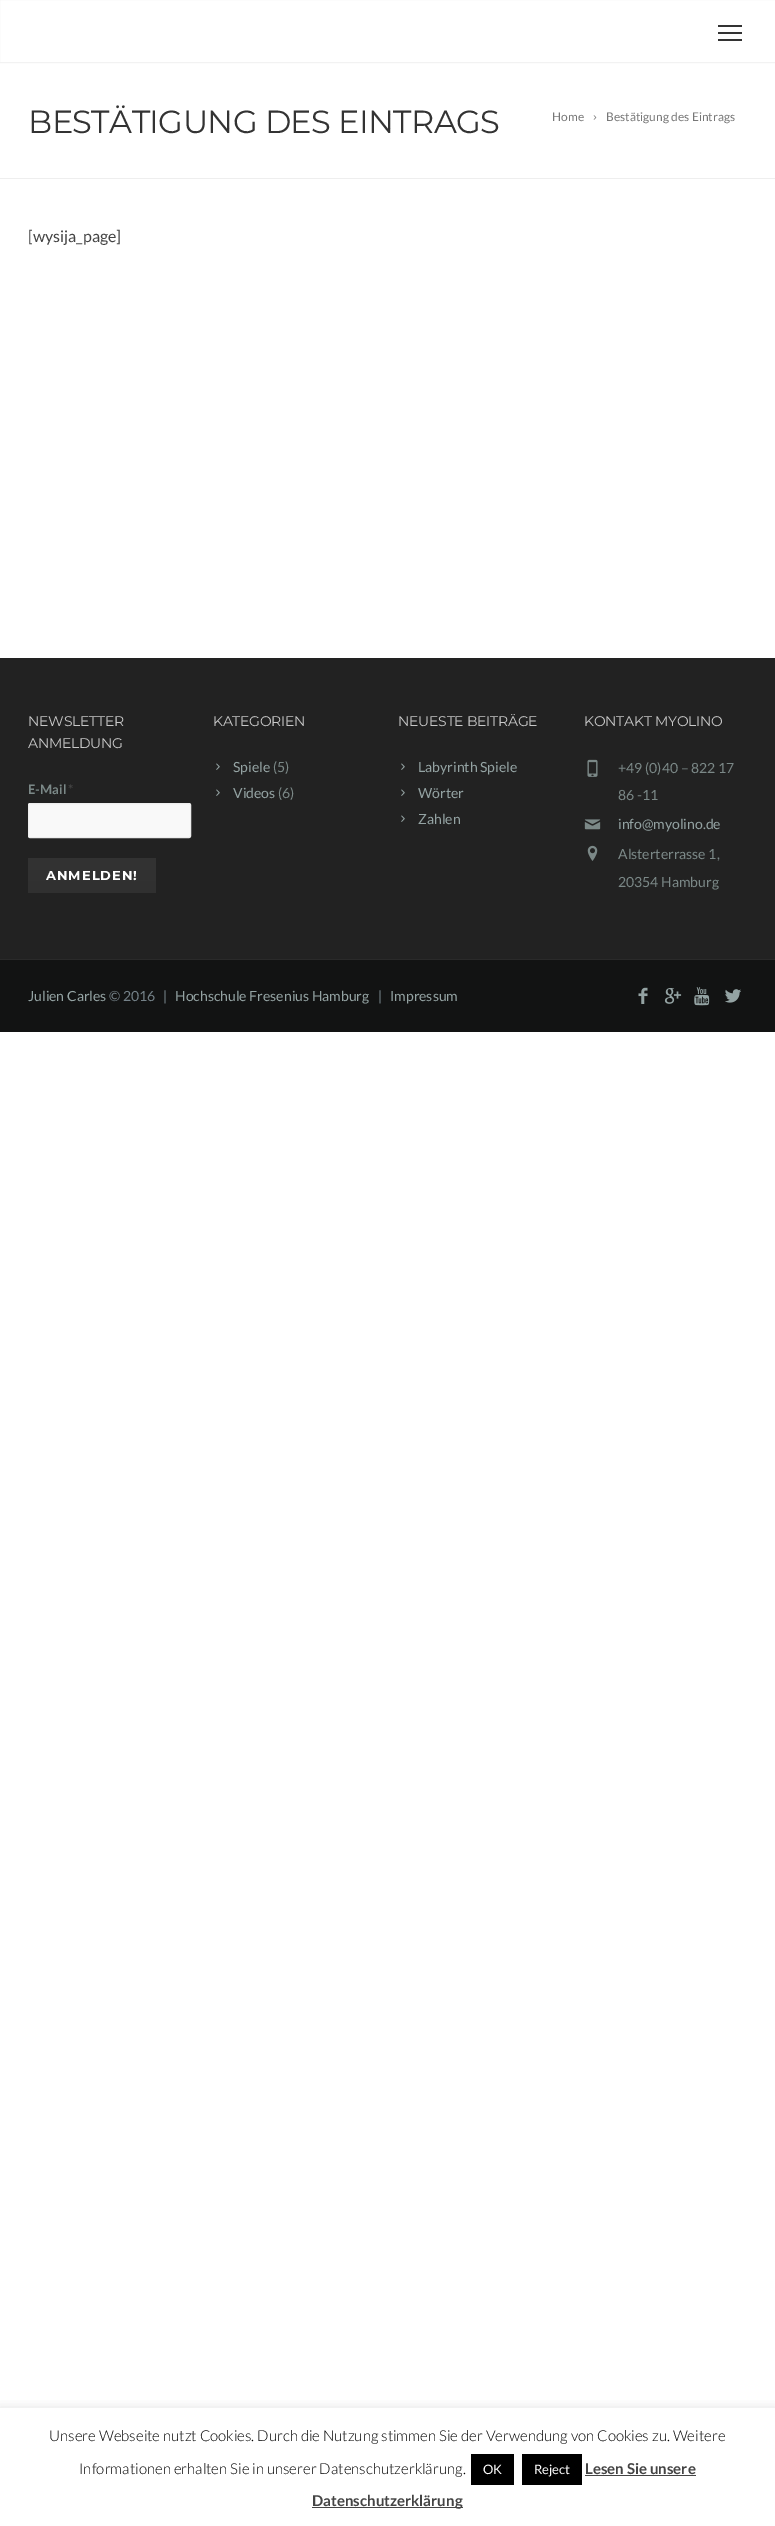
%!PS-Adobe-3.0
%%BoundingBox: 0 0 775 2526
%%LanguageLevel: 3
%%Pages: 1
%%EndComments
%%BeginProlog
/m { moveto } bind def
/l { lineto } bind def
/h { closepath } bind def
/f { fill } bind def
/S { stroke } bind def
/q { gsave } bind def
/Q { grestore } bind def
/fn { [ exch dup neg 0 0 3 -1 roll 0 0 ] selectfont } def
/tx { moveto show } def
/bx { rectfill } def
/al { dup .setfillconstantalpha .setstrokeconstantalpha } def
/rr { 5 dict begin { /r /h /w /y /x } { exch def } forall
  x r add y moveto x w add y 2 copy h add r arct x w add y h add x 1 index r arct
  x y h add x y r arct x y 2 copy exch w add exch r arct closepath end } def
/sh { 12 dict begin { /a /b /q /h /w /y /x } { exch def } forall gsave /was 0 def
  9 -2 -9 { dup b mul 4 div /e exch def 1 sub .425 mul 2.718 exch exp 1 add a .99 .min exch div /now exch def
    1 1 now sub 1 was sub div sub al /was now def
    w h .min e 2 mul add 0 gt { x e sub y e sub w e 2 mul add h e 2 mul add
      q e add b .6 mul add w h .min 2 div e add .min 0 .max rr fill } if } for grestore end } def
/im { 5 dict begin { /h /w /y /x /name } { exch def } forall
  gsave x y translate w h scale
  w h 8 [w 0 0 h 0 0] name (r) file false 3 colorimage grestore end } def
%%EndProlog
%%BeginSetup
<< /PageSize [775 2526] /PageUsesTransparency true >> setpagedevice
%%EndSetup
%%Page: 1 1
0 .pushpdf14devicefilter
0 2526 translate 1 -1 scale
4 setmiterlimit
1 setgray
0 0 775 2526 bx
0.949 setgray
-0.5 -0.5 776 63 rectstroke
0.2 setgray
718 25 24 2 bx
718 32 24 2 bx
718 39 24 2 bx
0.933 setgray
0 178 775 1 bx
/Montserrat-Regular 32 fn
0.2 setgray
28 133 m -0.6 0 (BESTÄTIGUNG DES EINTRAGS) ashow
/Lato-Regular 12 fn
0.467 setgray
(Home) 552 121 tx
(image0.raw) 593 115 4 5 im
(Bestätigung des Eintrags) 606 121 tx
/Lato-Regular 16 fn
0.267 setgray
([wysija_page]) 28 242 tx
0.133 setgray
0 658 775 301 bx
/Montserrat-Regular 14 fn
0.784 setgray
28 726 m -0.25 0 (NEWSLETTER) ashow
28 748 m -0.25 0 (ANMELDUNG) ashow
/Lato-Bold 13 fn
0.482 0.533 0.529 setrgbcolor
(E-Mail) 28 794 tx
0.267 setgray
(*) 68 794 tx
0.976 setgray
28.5 803.5 162 34 1.5 rr q f Q
0.933 setgray
S
q 28 858 m 156 858 l 156 893 l 28 893 l h clip newpath
<< /ShadingType 2 /ColorSpace /DeviceRGB /Coords [92 858 92 893] /Extend [true true] /Function << /FunctionType 2 /Domain [0 1] /C0 [0.2 0.2 0.2] /C1 [0.188 0.188 0.188] /N 1 >> >> shfill Q
/Montserrat-Bold 13 fn
1 setgray
46 880 m 1 0 (ANMELDEN!) ashow
/Montserrat-Regular 14 fn
0.784 setgray
213 726 m -0.25 0 (KATEGORIEN) ashow
(image1.raw) 216 763 4 7 im
/Lato-Regular 14 fn
0.58 0.639 0.639 setrgbcolor
(Spiele) 233 772 tx
0.482 0.533 0.529 setrgbcolor
(\(5\)) 273 772 tx
(image1.raw) 216 789 4 7 im
0.58 0.639 0.639 setrgbcolor
(Videos) 233 798 tx
0.482 0.533 0.529 setrgbcolor
(\(6\)) 278 798 tx
/Montserrat-Regular 14 fn
0.784 setgray
398 726 m -0.25 0 (NEUESTE BEITRÄGE) ashow
(image1.raw) 401 763 4 7 im
/Lato-Regular 14 fn
0.58 0.639 0.639 setrgbcolor
(Labyrinth Spiele) 418 772 tx
(image1.raw) 401 789 4 7 im
(Wörter) 418 798 tx
(image1.raw) 401 815 4 7 im
(Zahlen) 418 824 tx
/Montserrat-Regular 14 fn
0.784 setgray
584 726 m -0.25 0 (KONTAKT MYOLINO) ashow
(image2.raw) 587 759 11 18 im
/Lato-Regular 14 fn
0.482 0.533 0.529 setrgbcolor
(+49 \(0\)40 – 822 17) 618 773 tx
(86 -11) 618 800 tx
(image3.raw) 584 819 17 11 im
0.58 0.639 0.639 setrgbcolor
(info@myolino.de) 618 829 tx
(image4.raw) 587 845 11 16 im
0.482 0.533 0.529 setrgbcolor
(Alsterterrasse 1,) 618 859 tx
(20354 Hamburg) 618 887 tx
0.071 0.075 0.075 setrgbcolor
0 960 775 72 bx
0.165 setgray
0 959 775 1 bx
0.58 0.639 0.639 setrgbcolor
(Julien Carles) 28 1001 tx
0.455 0.506 0.533 setrgbcolor
(© 2016   |) 109 1001 tx
0.58 0.639 0.639 setrgbcolor
(Hochschule Fresenius Hamburg) 175 1001 tx
0.455 0.506 0.533 setrgbcolor
(|) 378 1001 tx
0.58 0.639 0.639 setrgbcolor
(Impressum) 390 1001 tx
(image5.raw) 638 987 10 17 im
(image6.raw) 664 988 18 16 im
(image7.raw) 694 987 16 19 im
(image8.raw) 725 989 16 14 im
q
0 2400 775 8 rectclip
0.675 0.671 0.671 setrgbcolor
0 2407 775 118 0 5 0.3 sh
Q
/Lato-Light 15 fn
0 setgray
(Unsere Webseite nutzt Cookies. Durch die Nutzung stimmen Sie der Verwendung von Cookies zu. Weitere) 49 2441 tx
(Informationen erhalten Sie in unserer Datenschutzerklärung.) 79 2474 tx
471 2454 43 31 bx
/Lato-Regular 13 fn
1 setgray
(OK) 483 2474 tx
0 setgray
522 2454 60 31 bx
1 setgray
(Reject) 534 2474 tx
/Lato-Bold 15 fn
0.267 setgray
(Lesen Sie unsere) 585 2474 tx
585 2475 111 1 bx
312 2507 151 1 bx
(Datenschutzerklärung) 312 2506 tx
.poppdf14devicefilter showpage
%%EOF
